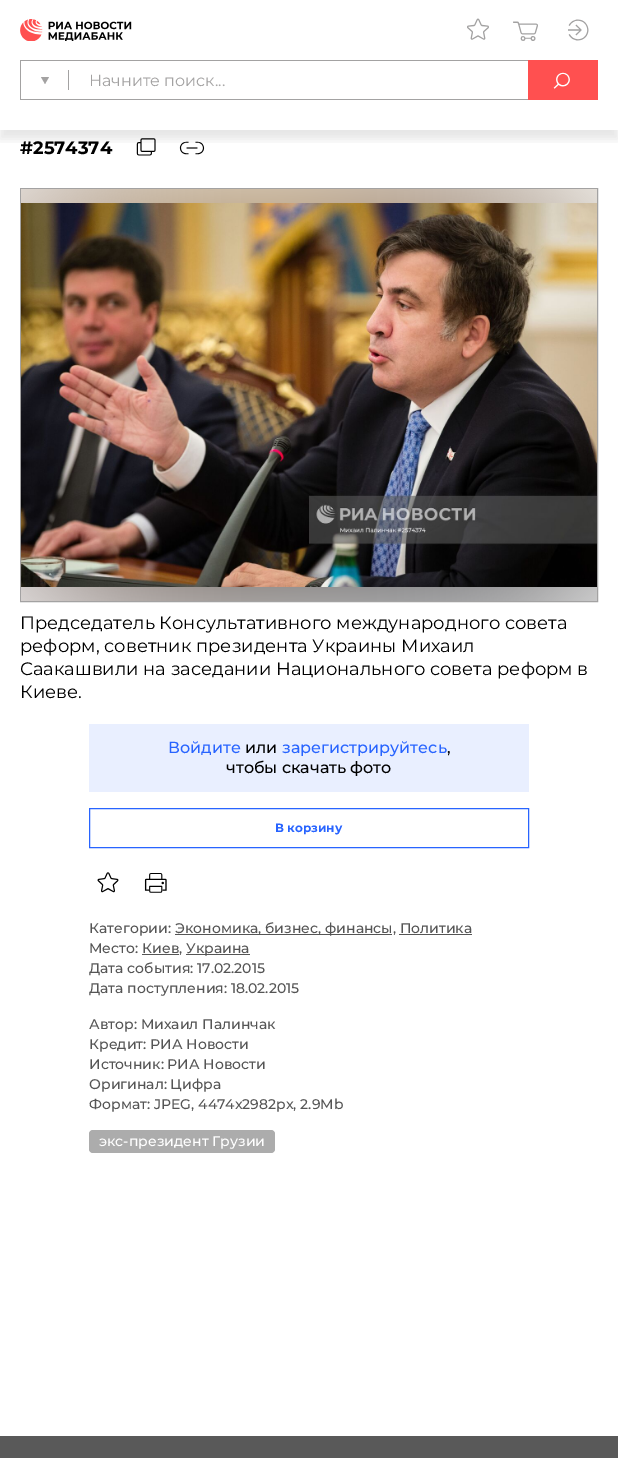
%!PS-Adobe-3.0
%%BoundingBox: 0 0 618 1458
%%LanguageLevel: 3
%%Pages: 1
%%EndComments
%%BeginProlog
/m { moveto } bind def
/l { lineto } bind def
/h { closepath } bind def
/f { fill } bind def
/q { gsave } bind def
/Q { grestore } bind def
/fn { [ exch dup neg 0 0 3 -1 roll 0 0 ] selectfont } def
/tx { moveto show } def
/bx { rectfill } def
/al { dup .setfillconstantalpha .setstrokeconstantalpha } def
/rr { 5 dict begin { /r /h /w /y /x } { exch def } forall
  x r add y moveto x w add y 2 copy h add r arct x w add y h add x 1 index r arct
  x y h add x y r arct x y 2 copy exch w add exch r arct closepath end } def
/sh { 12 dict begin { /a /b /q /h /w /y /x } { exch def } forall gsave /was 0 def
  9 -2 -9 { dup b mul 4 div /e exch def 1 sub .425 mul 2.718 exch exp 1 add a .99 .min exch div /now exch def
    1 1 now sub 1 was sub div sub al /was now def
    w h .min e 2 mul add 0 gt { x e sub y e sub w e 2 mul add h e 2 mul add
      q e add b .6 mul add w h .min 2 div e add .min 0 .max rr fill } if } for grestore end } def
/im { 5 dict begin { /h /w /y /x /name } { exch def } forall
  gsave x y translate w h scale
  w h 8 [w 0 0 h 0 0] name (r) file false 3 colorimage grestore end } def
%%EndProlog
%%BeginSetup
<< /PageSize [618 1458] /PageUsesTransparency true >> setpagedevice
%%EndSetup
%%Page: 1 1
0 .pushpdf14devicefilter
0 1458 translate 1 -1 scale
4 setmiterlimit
1 setgray
0 0 618 1458 bx
(image5.raw) 136 138 20 18 im
(image6.raw) 179 141 26 14 im
q
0 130 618 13 rectclip
0 setgray
0 9 618 130 0 5 0.1 sh
Q
(image0.raw) 20 19 112 22 im
(image1.raw) 467 18 22 22 im
(image2.raw) 513 21 25 20 im
(image3.raw) 568 19 21 22 im
0.639 0.635 0.635 setrgbcolor
20 60 508 1 bx
20 99 508 1 bx
20 60 1 40 bx
41 77 m 49 77 l 45 84 l h f
68 70 1 20 bx
/Montserrat-Regular 16 fn
(Начните поиск...) 89 86 tx
1 0.314 0.314 setrgbcolor
528 60 70 40 bx
(image4.raw) 553 72 17 17 im
/Montserrat-Bold 18 fn
0 setgray
(#2574374) 20 154 tx
0.639 0.635 0.635 setrgbcolor
20.5 188.5 577 413 rectstroke
(image7.raw) 21 189 576 412 im
(image8.raw) 21 203 576 384 im
/Montserrat-Regular 18 fn
0 setgray
(Председатель Консультативного международного совета) 20 629 tx
(реформ, советник президента Украины Михаил) 20 652 tx
(Саакашвили на заседании Национального совета реформ в) 20 675 tx
(Киеве.) 20 698 tx
0.914 0.937 1 setrgbcolor
89 724 440 68 bx
/Montserrat-Medium 16 fn
0.157 0.392 1 setrgbcolor
(Войдите) 168 753 tx
0 setgray
(или) 245 753 tx
0.157 0.392 1 setrgbcolor
(зарегистрируйтесь) 282 753 tx
0 setgray
(,) 447 753 tx
(чтобы скачать фото) 226 773 tx
0.157 0.392 1 setrgbcolor
89.5 808.5 439 39 rectstroke
/Montserrat-Bold 12 fn
(В корзину) 275 832 tx
(image9.raw) 97 872 22 21 im
(image10.raw) 144 873 23 20 im
/Montserrat-Medium 14 fn
0.333 setgray
(Категории:) 89 933 tx
175 934 217 1 bx
(Экономика, бизнес, финансы, Политика) 175 933 tx
399 934 73 1 bx
(Место: Киев,) 89 953 tx
186 954 64 1 bx
(Украина) 186 953 tx
142 954 37 1 bx
(Дата события: 17.02.2015) 89 973 tx
(Дата поступления: 18.02.2015) 89 993 tx
(Автор: Михаил Палинчак) 89 1029 tx
(Кредит: РИА Новости) 89 1049 tx
(Источник: РИА Новости) 89 1069 tx
(Оригинал: Цифра) 89 1089 tx
(Формат: JPEG, 4474x2982px, 2.9Mb) 89 1109 tx
0.675 setgray
89 1130 186 23 4 rr f
1 setgray
(экс-президент Грузии) 99 1146 tx
0.349 setgray
0 1436 618 22 bx
.poppdf14devicefilter showpage
%%EOF
